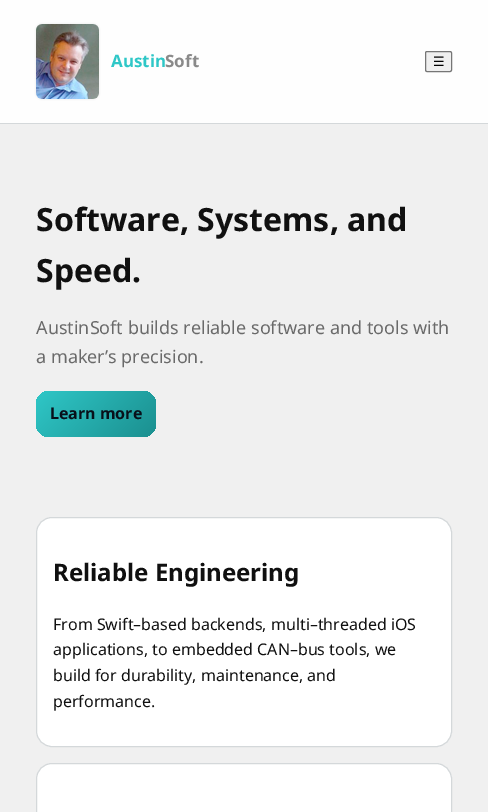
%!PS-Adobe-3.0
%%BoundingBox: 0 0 488 812
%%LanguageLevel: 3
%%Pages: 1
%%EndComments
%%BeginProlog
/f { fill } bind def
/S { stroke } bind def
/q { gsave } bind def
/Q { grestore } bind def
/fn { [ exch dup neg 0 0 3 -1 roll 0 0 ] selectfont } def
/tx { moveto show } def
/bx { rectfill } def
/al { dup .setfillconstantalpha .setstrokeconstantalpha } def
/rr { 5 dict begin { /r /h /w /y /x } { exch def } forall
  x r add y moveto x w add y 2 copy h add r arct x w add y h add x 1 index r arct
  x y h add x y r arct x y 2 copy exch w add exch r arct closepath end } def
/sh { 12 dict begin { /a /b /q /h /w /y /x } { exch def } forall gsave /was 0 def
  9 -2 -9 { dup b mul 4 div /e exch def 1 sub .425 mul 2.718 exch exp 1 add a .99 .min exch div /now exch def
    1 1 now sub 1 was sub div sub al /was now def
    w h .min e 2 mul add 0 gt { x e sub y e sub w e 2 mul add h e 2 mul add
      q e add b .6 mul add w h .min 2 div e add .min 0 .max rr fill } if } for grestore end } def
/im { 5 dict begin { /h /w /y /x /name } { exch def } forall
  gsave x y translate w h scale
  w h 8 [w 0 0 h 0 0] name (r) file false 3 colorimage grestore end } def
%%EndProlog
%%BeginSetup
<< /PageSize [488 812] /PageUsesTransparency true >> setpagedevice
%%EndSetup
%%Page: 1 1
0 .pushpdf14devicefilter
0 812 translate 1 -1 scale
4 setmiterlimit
0.941 setgray
0 0 488 812 bx
0.996 setgray
0 0 488 123 bx
0.831 0.847 0.855 setrgbcolor
0 123 488 1 bx
0 setgray
36 24 63 75 6 1 0.1 sh
(image0.raw) 36 24 63 75 im
/NotoSans-Bold 17 fn
0.184 0.78 0.78 setrgbcolor
(Austin) 111 67 tx
0.541 setgray
(Soft) 165 67 tx
0.937 setgray
425.5 51.5 26 20 1.5 rr q f Q
0.463 setgray
S
/DejaVuSans-Regular 13 fn
0 setgray
(☰) 433 66 tx
/NotoSans-Bold 32 fn
0.063 setgray
(Software, Systems, and) 36 231 tx
(Speed.) 36 282 tx
/NotoSans-Regular 18 fn
0.416 setgray
(AustinSoft builds reliable software and tools with) 36 334 tx
(a maker’s precision.) 36 363 tx
q 36 391 120 46 14 rr clip newpath
<< /ShadingType 2 /ColorSpace /DeviceRGB /Coords [54 373 138 456] /Extend [true true] /Function << /FunctionType 2 /Domain [0 1] /C0 [0.184 0.78 0.78] /C1 [0.106 0.561 0.561] /N 1 >> >> shfill Q
/NotoSans-Bold 16 fn
0.031 0.063 0.102 setrgbcolor
(Learn more) 50 419 tx
1 setgray
36.5 517.5 415 229 15.5 rr q f Q
0.831 0.847 0.855 setrgbcolor
S
/NotoSans-Bold 24 fn
0.063 setgray
(Reliable Engineering) 53 581 tx
/NotoSans-Regular 16 fn
(From Swift–based backends, multi–threaded iOS) 53 630 tx
(applications, to embedded CAN–bus tools, we) 53 655 tx
(build for durability, maintenance, and) 53 681 tx
(performance.) 53 707 tx
1 setgray
36.5 763.5 415 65 15.5 rr q f Q
0.831 0.847 0.855 setrgbcolor
S
.poppdf14devicefilter showpage
%%EOF
